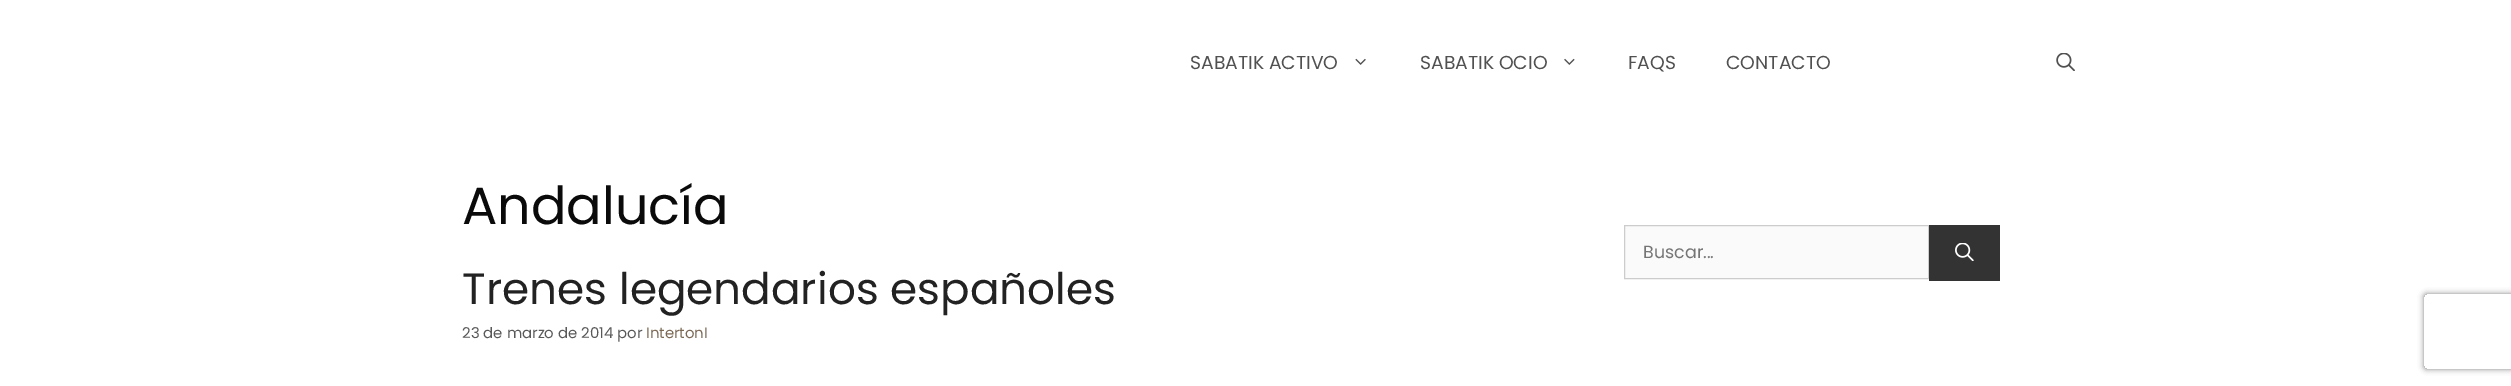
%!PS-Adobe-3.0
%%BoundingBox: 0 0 2511 386
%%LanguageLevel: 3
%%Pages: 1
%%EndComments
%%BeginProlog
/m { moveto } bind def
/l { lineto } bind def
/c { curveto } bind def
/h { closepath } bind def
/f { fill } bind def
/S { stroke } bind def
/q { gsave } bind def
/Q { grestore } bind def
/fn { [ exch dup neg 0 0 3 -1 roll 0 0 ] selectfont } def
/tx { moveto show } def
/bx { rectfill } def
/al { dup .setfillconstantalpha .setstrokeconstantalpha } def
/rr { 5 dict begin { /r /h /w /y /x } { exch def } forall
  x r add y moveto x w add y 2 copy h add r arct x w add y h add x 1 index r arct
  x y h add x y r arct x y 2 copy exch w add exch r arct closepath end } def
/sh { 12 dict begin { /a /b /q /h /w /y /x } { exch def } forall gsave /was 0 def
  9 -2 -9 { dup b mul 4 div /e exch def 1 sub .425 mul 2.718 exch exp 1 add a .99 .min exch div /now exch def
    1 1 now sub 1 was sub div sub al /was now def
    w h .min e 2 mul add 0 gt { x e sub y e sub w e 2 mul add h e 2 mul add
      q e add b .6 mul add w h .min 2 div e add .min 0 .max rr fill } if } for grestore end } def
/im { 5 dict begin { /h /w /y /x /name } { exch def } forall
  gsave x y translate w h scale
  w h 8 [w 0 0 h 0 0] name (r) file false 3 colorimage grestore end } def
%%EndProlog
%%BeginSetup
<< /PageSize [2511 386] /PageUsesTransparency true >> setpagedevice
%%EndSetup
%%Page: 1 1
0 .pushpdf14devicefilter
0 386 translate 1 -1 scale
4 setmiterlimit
1 setgray
0 0 2511 386 bx
/Poppins-Regular 18.75 fn
0.318 setgray
(SABATIK ACTIVO) 1190 69 tx
(image0.raw) 1355 58 11 7 im
(SABATIK OCIO) 1420 69 tx
(image1.raw) 1564 58 11 7 im
(FAQS) 1628 69 tx
(CONTACTO) 1726 69 tx
(image2.raw) 2056 53 19 18 im
/Poppins-Regular 52.5 fn
0.039 setgray
(Andalucía) 462 224 tx
/Poppins-Regular 43.75 fn
0.133 setgray
(Trenes legendarios españoles) 462 304 tx
/Poppins-Regular 14.9 fn
0.349 setgray
(23 de marzo de 2014 por) 462 338 tx
0.482 0.412 0.333 setrgbcolor
(IntertonI) 646 338 tx
0.98 setgray
1624.5 225.5 m 1928.5 225.5 l 1928.5 278.5 l 1624.5 278.5 l h q f Q
0.8 setgray
S
/Poppins-Regular 17.5 fn
0.459 setgray
(Buscar...) 1643 258 tx
0.2 setgray
1929 225 71 56 bx
(image3.raw) 1955 243 19 18 im
q
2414 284 m 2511 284 l 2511 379 l 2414 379 l h 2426.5 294 m 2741.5 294 l 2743 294 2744 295 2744 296.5 c 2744 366.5 l 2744 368 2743 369 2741.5 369 c 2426.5 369 l 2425 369 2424 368 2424 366.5 c 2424 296.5 l 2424 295 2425 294 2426.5 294 c h eoclip newpath
0.502 setgray
2424 294 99 75 2.5 3 1 sh
Q
.poppdf14devicefilter showpage
%%EOF
